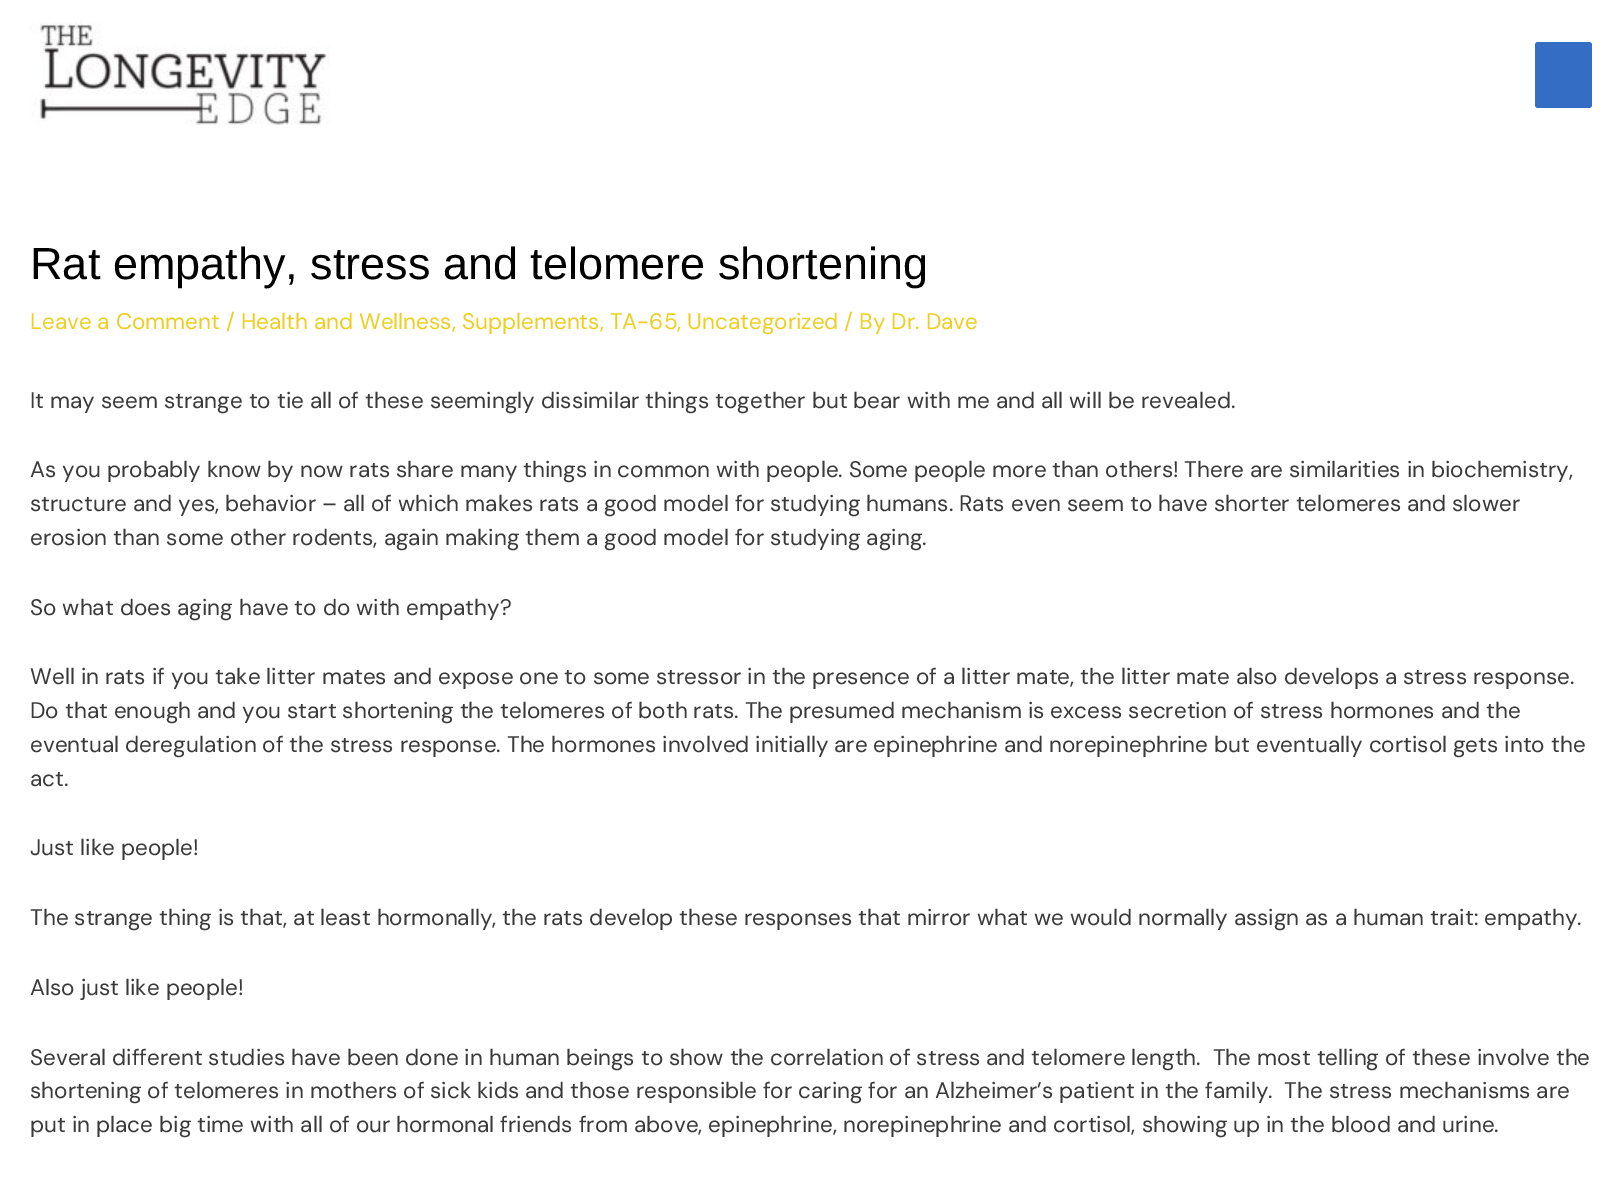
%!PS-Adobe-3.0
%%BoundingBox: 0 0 1621 1196
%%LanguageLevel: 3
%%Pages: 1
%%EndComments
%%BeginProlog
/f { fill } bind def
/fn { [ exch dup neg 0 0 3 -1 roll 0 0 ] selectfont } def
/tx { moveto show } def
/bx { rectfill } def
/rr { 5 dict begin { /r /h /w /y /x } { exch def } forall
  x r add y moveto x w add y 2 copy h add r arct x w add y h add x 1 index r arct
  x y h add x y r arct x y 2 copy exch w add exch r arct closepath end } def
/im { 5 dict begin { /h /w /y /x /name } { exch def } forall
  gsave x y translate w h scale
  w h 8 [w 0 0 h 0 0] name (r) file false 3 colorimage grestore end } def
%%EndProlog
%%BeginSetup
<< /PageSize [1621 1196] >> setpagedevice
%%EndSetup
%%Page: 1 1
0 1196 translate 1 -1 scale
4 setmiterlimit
1 setgray
0 0 1621 1196 bx
(image0.raw) 30 22 300 103 im
0.2 0.427 0.769 setrgbcolor
1535 42 57 66 3 rr f
/LiberationSans-Regular 45 fn
0 setgray
(Rat empathy, stress and telomere shortening) 30 279 tx
/DMSans-Regular 22.5 fn
0.929 0.808 0.129 setrgbcolor
(Leave a Comment / Health and Wellness, Supplements, TA-65, Uncategorized / By Dr. Dave) 30 329 tx
0.227 setgray
(It may seem strange to tie all of these seemingly dissimilar things together but bear with me and all will be revealed.) 30 408 tx
(As you probably know by now rats share many things in common with people. Some people more than others! There are similarities in biochemistry,) 30 477 tx
(structure and yes, behavior – all of which makes rats a good model for studying humans. Rats even seem to have shorter telomeres and slower) 30 511 tx
(erosion than some other rodents, again making them a good model for studying aging.) 30 545 tx
(So what does aging have to do with empathy?) 30 615 tx
(Well in rats if you take litter mates and expose one to some stressor in the presence of a litter mate, the litter mate also develops a stress response.) 30 684 tx
(Do that enough and you start shortening the telomeres of both rats. The presumed mechanism is excess secretion of stress hormones and the) 30 718 tx
(eventual deregulation of the stress response. The hormones involved initially are epinephrine and norepinephrine but eventually cortisol gets into the) 30 752 tx
(act.) 30 786 tx
(Just like people!) 30 855 tx
(The strange thing is that, at least hormonally, the rats develop these responses that mirror what we would normally assign as a human trait: empathy.) 30 925 tx
(Also just like people!) 30 995 tx
(Several different studies have been done in human beings to show the correlation of stress and telomere length.  The most telling of these involve the) 30 1065 tx
(shortening of telomeres in mothers of sick kids and those responsible for caring for an Alzheimer’s patient in the family.  The stress mechanisms are) 30 1098 tx
(put in place big time with all of our hormonal friends from above, epinephrine, norepinephrine and cortisol, showing up in the blood and urine.) 30 1132 tx
showpage
%%EOF
